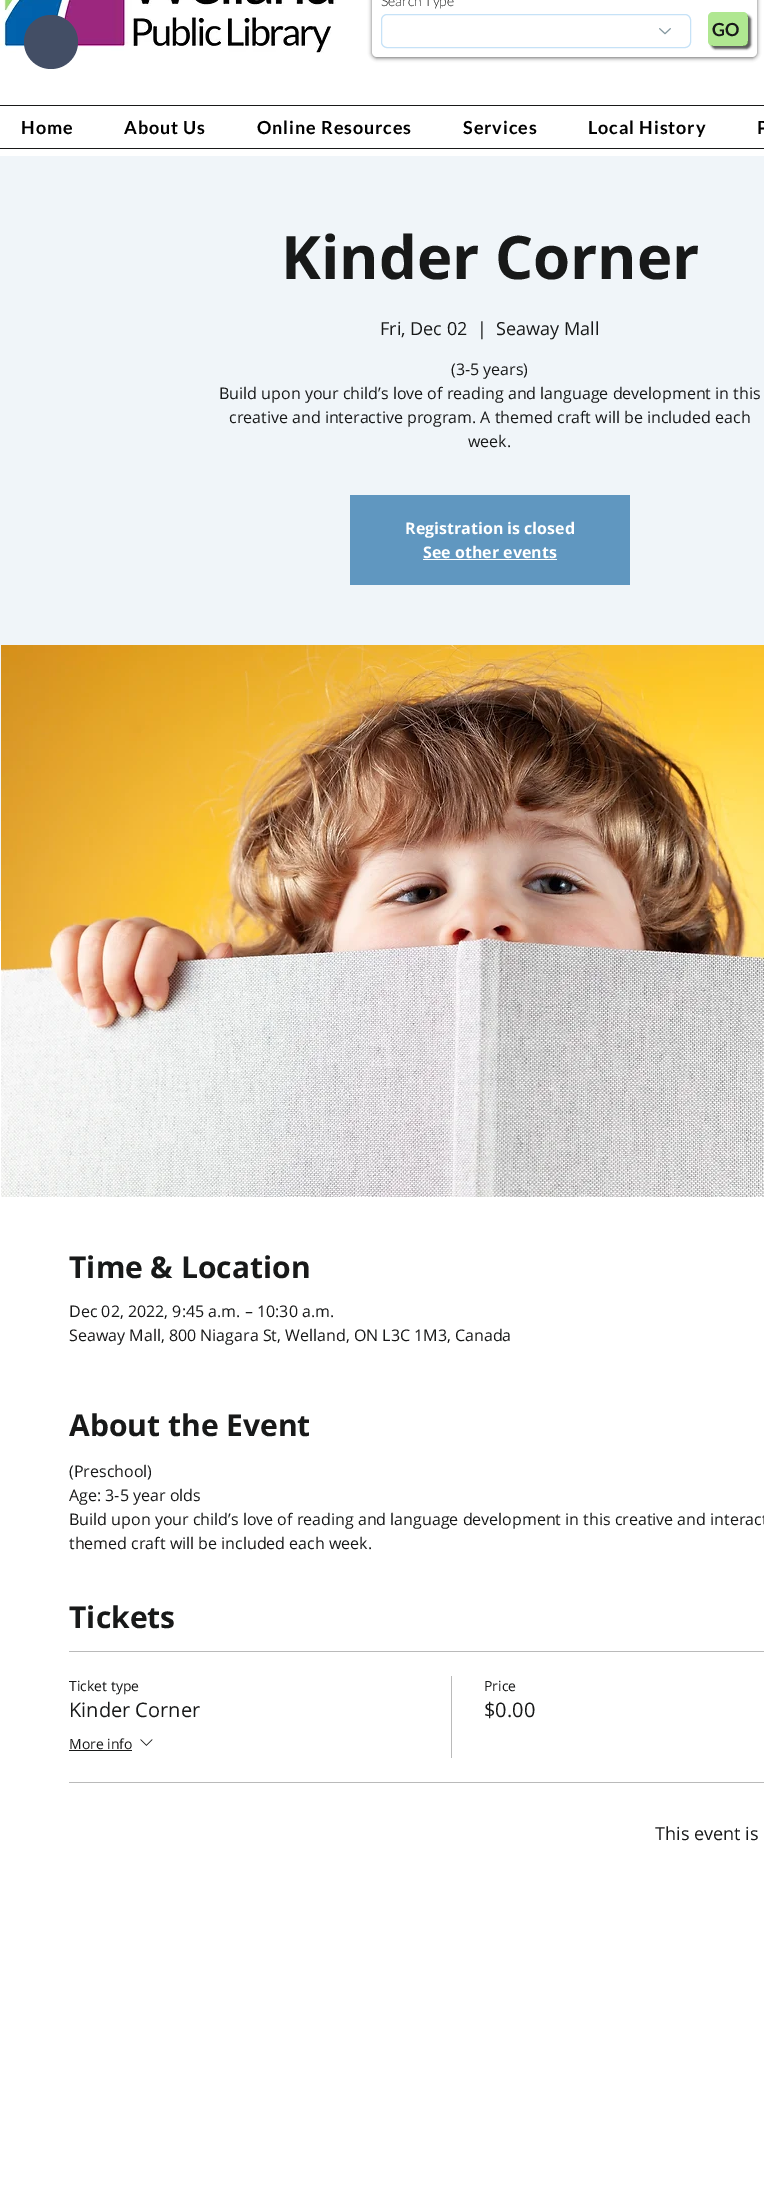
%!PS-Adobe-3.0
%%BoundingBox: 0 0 764 2198
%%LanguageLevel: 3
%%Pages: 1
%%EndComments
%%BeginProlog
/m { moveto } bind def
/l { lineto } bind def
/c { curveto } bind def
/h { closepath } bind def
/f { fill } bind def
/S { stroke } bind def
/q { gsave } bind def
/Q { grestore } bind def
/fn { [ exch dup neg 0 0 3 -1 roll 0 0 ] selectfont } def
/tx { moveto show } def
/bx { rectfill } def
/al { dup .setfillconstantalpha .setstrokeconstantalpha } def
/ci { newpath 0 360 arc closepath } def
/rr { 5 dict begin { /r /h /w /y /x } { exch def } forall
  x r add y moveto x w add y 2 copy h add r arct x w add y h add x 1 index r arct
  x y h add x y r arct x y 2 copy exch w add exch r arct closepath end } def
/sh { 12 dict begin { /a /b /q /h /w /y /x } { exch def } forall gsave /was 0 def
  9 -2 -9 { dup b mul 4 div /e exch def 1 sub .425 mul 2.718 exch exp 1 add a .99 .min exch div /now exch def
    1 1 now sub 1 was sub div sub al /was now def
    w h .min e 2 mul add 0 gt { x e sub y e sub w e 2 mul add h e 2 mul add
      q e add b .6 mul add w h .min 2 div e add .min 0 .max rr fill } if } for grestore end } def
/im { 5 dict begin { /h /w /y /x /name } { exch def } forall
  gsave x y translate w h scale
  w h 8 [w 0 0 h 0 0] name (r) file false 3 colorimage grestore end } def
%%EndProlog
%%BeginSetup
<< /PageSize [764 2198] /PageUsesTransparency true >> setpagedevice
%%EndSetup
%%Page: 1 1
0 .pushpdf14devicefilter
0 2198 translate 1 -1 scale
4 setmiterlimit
1 setgray
0 0 764 2198 bx
(image0.raw) 0 0 336 53 im
0 setgray
372 -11 385 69 5 2 0.6 sh
1 setgray
372 -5 385 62 5 rr f
/Lato-Light 14 fn
0.094 0.098 0.098 setrgbcolor
(Search Type) 381 6 tx
0.776 0.886 0.969 setrgbcolor
381.5 14.5 309 33 5.5 rr S
(image1.raw) 659 28 12 7 im
q
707 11 m 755 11 l 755 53 l 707 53 l h 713 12 m 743 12 l 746 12 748 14 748 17 c 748 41 l 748 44 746 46 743 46 c 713 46 l 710 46 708 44 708 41 c 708 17 l 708 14 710 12 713 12 c h eoclip newpath
0 setgray
711 15 40 34 5 1 0.65 sh
Q
0.75 al
0.584 0.875 0.424 setrgbcolor
708 12 40 34 5 rr f
/Lato-Bold 18 fn
1 al
0.094 0.098 0.098 setrgbcolor
(GO) 712 36 tx
0 105 764 1 bx
0 148 764 1 bx
0 setgray
21 134 m 0.9 0 (Home) ashow
124 134 m 0.9 0 (About Us) ashow
257 134 m 0.9 0 (Online Resources) ashow
463 134 m 0.9 0 (Services) ashow
588 134 m 0.9 0 (Local History) ashow
757 134 m 0.9 0 (P) ashow
0.941 0.961 0.976 setrgbcolor
0 156 764 765 bx
/OpenSans-Bold 60 fn
0.094 0.098 0.098 setrgbcolor
(Kinder Corner) 281 279 tx
/OpenSans-Regular 18 fn
(Fri, Dec 02) 380 335 tx
(|) 477 335 tx
(Seaway Mall) 496 335 tx
/OpenSans-Regular 16 fn
(\(3-5 years\)) 451 375 tx
(Build upon your child’s love of reading and language development in this) 219 399 tx
(creative and interactive program. A themed craft will be included each) 229 423 tx
(week.) 468 447 tx
0.376 0.592 0.753 setrgbcolor
350 495 280 90 bx
/OpenSans-Bold 16 fn
1 setgray
(Registration is closed) 405 534 tx
(See other events) 423 558 tx
423 559 134 1 bx
(image2.raw) 1 645 763 552 im
/OpenSans-Bold 30 fn
0.094 0.098 0.098 setrgbcolor
(Time & Location) 69 1278 tx
/OpenSans-Regular 16 fn
(Dec 02, 2022, 9:45 a.m. – 10:30 a.m.) 69 1317 tx
(Seaway Mall, 800 Niagara St, Welland, ON L3C 1M3, Canada) 69 1341 tx
/OpenSans-Bold 30 fn
(About the Event) 69 1436 tx
/OpenSans-Regular 16 fn
(\(Preschool\)) 69 1477 tx
(Age: 3-5 year olds) 69 1501 tx
(Build upon your child’s love of reading and language development in this creative and interact) 69 1525 tx
(themed craft will be included each week.) 69 1549 tx
/OpenSans-Bold 30 fn
(Tickets) 69 1628 tx
0.729 setgray
69 1651 695 1 bx
69 1782 695 1 bx
/OpenSans-Regular 14 fn
0.094 0.098 0.098 setrgbcolor
(Ticket type) 69 1691 tx
/OpenSans-Regular 20 fn
(Kinder Corner) 69 1717 tx
/OpenSans-Regular 14 fn
(More info) 69 1749 tx
69 1750 63 1 bx
(image3.raw) 140 1739 13 7 im
0.729 setgray
451 1676 1 82 bx
0.094 0.098 0.098 setrgbcolor
(Price) 484 1691 tx
/OpenSans-Regular 20 fn
($0.00) 484 1717 tx
/OpenSans-Regular 18 fn
(This event is) 655 1840 tx
0.263 0.306 0.396 setrgbcolor
51 42 27 ci f
.poppdf14devicefilter showpage
%%EOF
